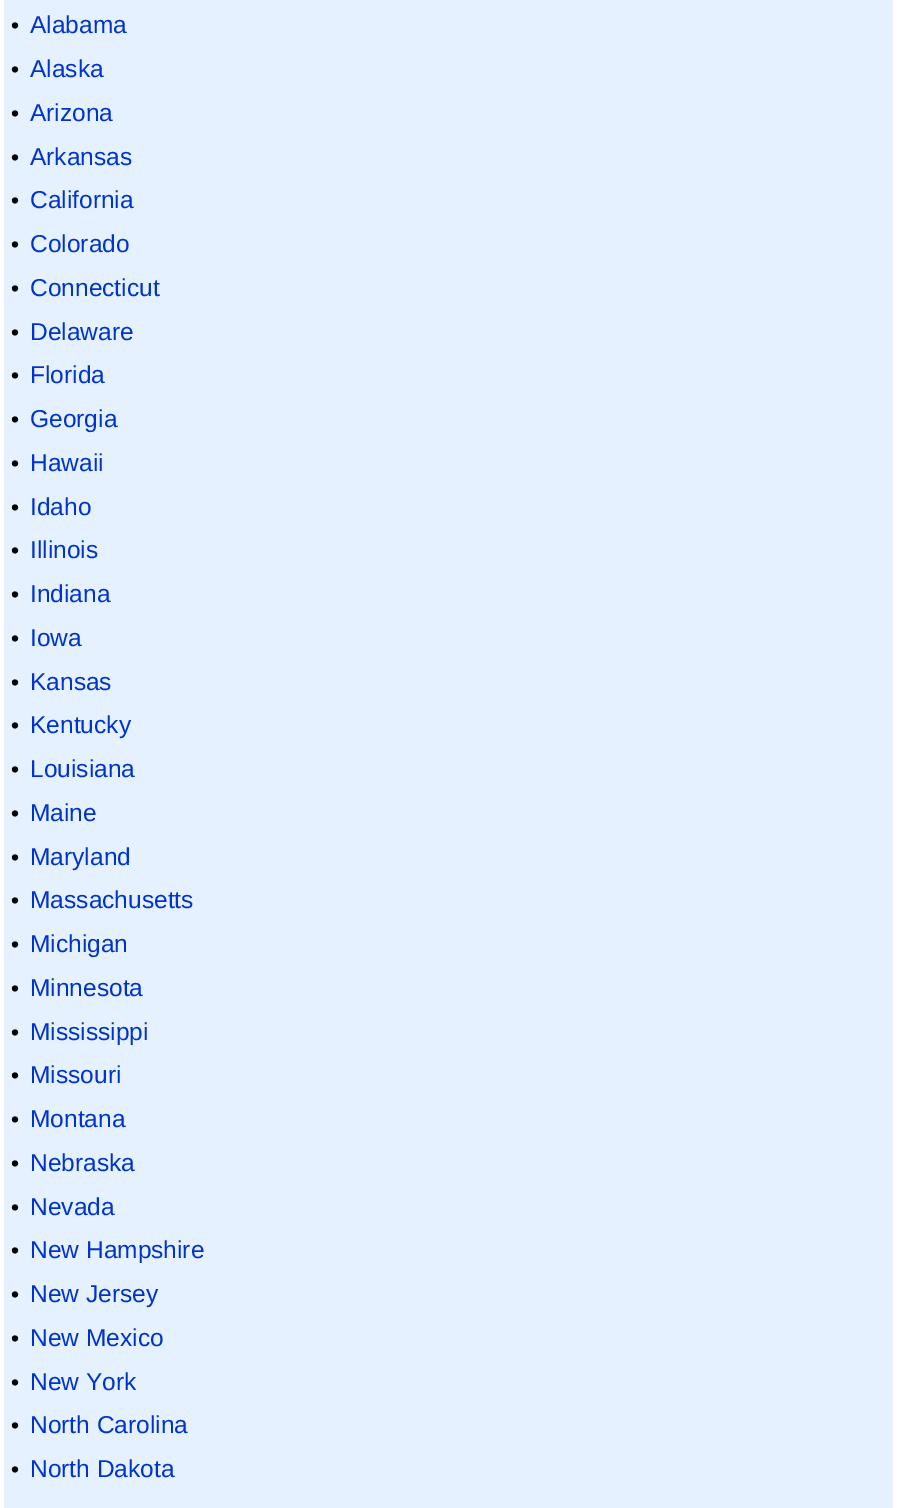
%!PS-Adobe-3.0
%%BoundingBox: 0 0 900 1508
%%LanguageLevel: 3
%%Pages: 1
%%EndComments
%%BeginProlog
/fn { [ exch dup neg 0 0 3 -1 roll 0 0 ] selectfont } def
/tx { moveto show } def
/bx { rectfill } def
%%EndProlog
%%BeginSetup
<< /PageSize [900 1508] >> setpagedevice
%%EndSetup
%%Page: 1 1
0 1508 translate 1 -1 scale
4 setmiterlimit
1 setgray
0 0 900 1508 bx
0.898 0.945 1 setrgbcolor
4 0 889 1508 bx
/LiberationSans-Regular 23 fn
0 setgray
(•) 11 33 tx
/LiberationSans-Regular 24.5 fn
0 0.2 0.8 setrgbcolor
(Alabama) 30 33 tx
/LiberationSans-Regular 23 fn
0 setgray
(•) 11 77 tx
/LiberationSans-Regular 24.5 fn
0 0.2 0.8 setrgbcolor
(Alaska) 30 77 tx
/LiberationSans-Regular 23 fn
0 setgray
(•) 11 121 tx
/LiberationSans-Regular 24.5 fn
0 0.2 0.8 setrgbcolor
(Arizona) 30 121 tx
/LiberationSans-Regular 23 fn
0 setgray
(•) 11 165 tx
/LiberationSans-Regular 24.5 fn
0 0.2 0.8 setrgbcolor
(Arkansas) 30 165 tx
/LiberationSans-Regular 23 fn
0 setgray
(•) 11 208 tx
/LiberationSans-Regular 24.5 fn
0 0.2 0.8 setrgbcolor
(California) 30 208 tx
/LiberationSans-Regular 23 fn
0 setgray
(•) 11 252 tx
/LiberationSans-Regular 24.5 fn
0 0.2 0.8 setrgbcolor
(Colorado) 30 252 tx
/LiberationSans-Regular 23 fn
0 setgray
(•) 11 296 tx
/LiberationSans-Regular 24.5 fn
0 0.2 0.8 setrgbcolor
(Connecticut) 30 296 tx
/LiberationSans-Regular 23 fn
0 setgray
(•) 11 340 tx
/LiberationSans-Regular 24.5 fn
0 0.2 0.8 setrgbcolor
(Delaware) 30 340 tx
/LiberationSans-Regular 23 fn
0 setgray
(•) 11 383 tx
/LiberationSans-Regular 24.5 fn
0 0.2 0.8 setrgbcolor
(Florida) 30 383 tx
/LiberationSans-Regular 23 fn
0 setgray
(•) 11 427 tx
/LiberationSans-Regular 24.5 fn
0 0.2 0.8 setrgbcolor
(Georgia) 30 427 tx
/LiberationSans-Regular 23 fn
0 setgray
(•) 11 471 tx
/LiberationSans-Regular 24.5 fn
0 0.2 0.8 setrgbcolor
(Hawaii) 30 471 tx
/LiberationSans-Regular 23 fn
0 setgray
(•) 11 515 tx
/LiberationSans-Regular 24.5 fn
0 0.2 0.8 setrgbcolor
(Idaho) 30 515 tx
/LiberationSans-Regular 23 fn
0 setgray
(•) 11 558 tx
/LiberationSans-Regular 24.5 fn
0 0.2 0.8 setrgbcolor
(Illinois) 30 558 tx
/LiberationSans-Regular 23 fn
0 setgray
(•) 11 602 tx
/LiberationSans-Regular 24.5 fn
0 0.2 0.8 setrgbcolor
(Indiana) 30 602 tx
/LiberationSans-Regular 23 fn
0 setgray
(•) 11 646 tx
/LiberationSans-Regular 24.5 fn
0 0.2 0.8 setrgbcolor
(Iowa) 30 646 tx
/LiberationSans-Regular 23 fn
0 setgray
(•) 11 690 tx
/LiberationSans-Regular 24.5 fn
0 0.2 0.8 setrgbcolor
(Kansas) 30 690 tx
/LiberationSans-Regular 23 fn
0 setgray
(•) 11 733 tx
/LiberationSans-Regular 24.5 fn
0 0.2 0.8 setrgbcolor
(Kentucky) 30 733 tx
/LiberationSans-Regular 23 fn
0 setgray
(•) 11 777 tx
/LiberationSans-Regular 24.5 fn
0 0.2 0.8 setrgbcolor
(Louisiana) 30 777 tx
/LiberationSans-Regular 23 fn
0 setgray
(•) 11 821 tx
/LiberationSans-Regular 24.5 fn
0 0.2 0.8 setrgbcolor
(Maine) 30 821 tx
/LiberationSans-Regular 23 fn
0 setgray
(•) 11 865 tx
/LiberationSans-Regular 24.5 fn
0 0.2 0.8 setrgbcolor
(Maryland) 30 865 tx
/LiberationSans-Regular 23 fn
0 setgray
(•) 11 908 tx
/LiberationSans-Regular 24.5 fn
0 0.2 0.8 setrgbcolor
(Massachusetts) 30 908 tx
/LiberationSans-Regular 23 fn
0 setgray
(•) 11 952 tx
/LiberationSans-Regular 24.5 fn
0 0.2 0.8 setrgbcolor
(Michigan) 30 952 tx
/LiberationSans-Regular 23 fn
0 setgray
(•) 11 996 tx
/LiberationSans-Regular 24.5 fn
0 0.2 0.8 setrgbcolor
(Minnesota) 30 996 tx
/LiberationSans-Regular 23 fn
0 setgray
(•) 11 1040 tx
/LiberationSans-Regular 24.5 fn
0 0.2 0.8 setrgbcolor
(Mississippi) 30 1040 tx
/LiberationSans-Regular 23 fn
0 setgray
(•) 11 1083 tx
/LiberationSans-Regular 24.5 fn
0 0.2 0.8 setrgbcolor
(Missouri) 30 1083 tx
/LiberationSans-Regular 23 fn
0 setgray
(•) 11 1127 tx
/LiberationSans-Regular 24.5 fn
0 0.2 0.8 setrgbcolor
(Montana) 30 1127 tx
/LiberationSans-Regular 23 fn
0 setgray
(•) 11 1171 tx
/LiberationSans-Regular 24.5 fn
0 0.2 0.8 setrgbcolor
(Nebraska) 30 1171 tx
/LiberationSans-Regular 23 fn
0 setgray
(•) 11 1215 tx
/LiberationSans-Regular 24.5 fn
0 0.2 0.8 setrgbcolor
(Nevada) 30 1215 tx
/LiberationSans-Regular 23 fn
0 setgray
(•) 11 1258 tx
/LiberationSans-Regular 24.5 fn
0 0.2 0.8 setrgbcolor
(New Hampshire) 30 1258 tx
/LiberationSans-Regular 23 fn
0 setgray
(•) 11 1302 tx
/LiberationSans-Regular 24.5 fn
0 0.2 0.8 setrgbcolor
(New Jersey) 30 1302 tx
/LiberationSans-Regular 23 fn
0 setgray
(•) 11 1346 tx
/LiberationSans-Regular 24.5 fn
0 0.2 0.8 setrgbcolor
(New Mexico) 30 1346 tx
/LiberationSans-Regular 23 fn
0 setgray
(•) 11 1390 tx
/LiberationSans-Regular 24.5 fn
0 0.2 0.8 setrgbcolor
(New York) 30 1390 tx
/LiberationSans-Regular 23 fn
0 setgray
(•) 11 1433 tx
/LiberationSans-Regular 24.5 fn
0 0.2 0.8 setrgbcolor
(North Carolina) 30 1433 tx
/LiberationSans-Regular 23 fn
0 setgray
(•) 11 1477 tx
/LiberationSans-Regular 24.5 fn
0 0.2 0.8 setrgbcolor
(North Dakota) 30 1477 tx
showpage
%%EOF
